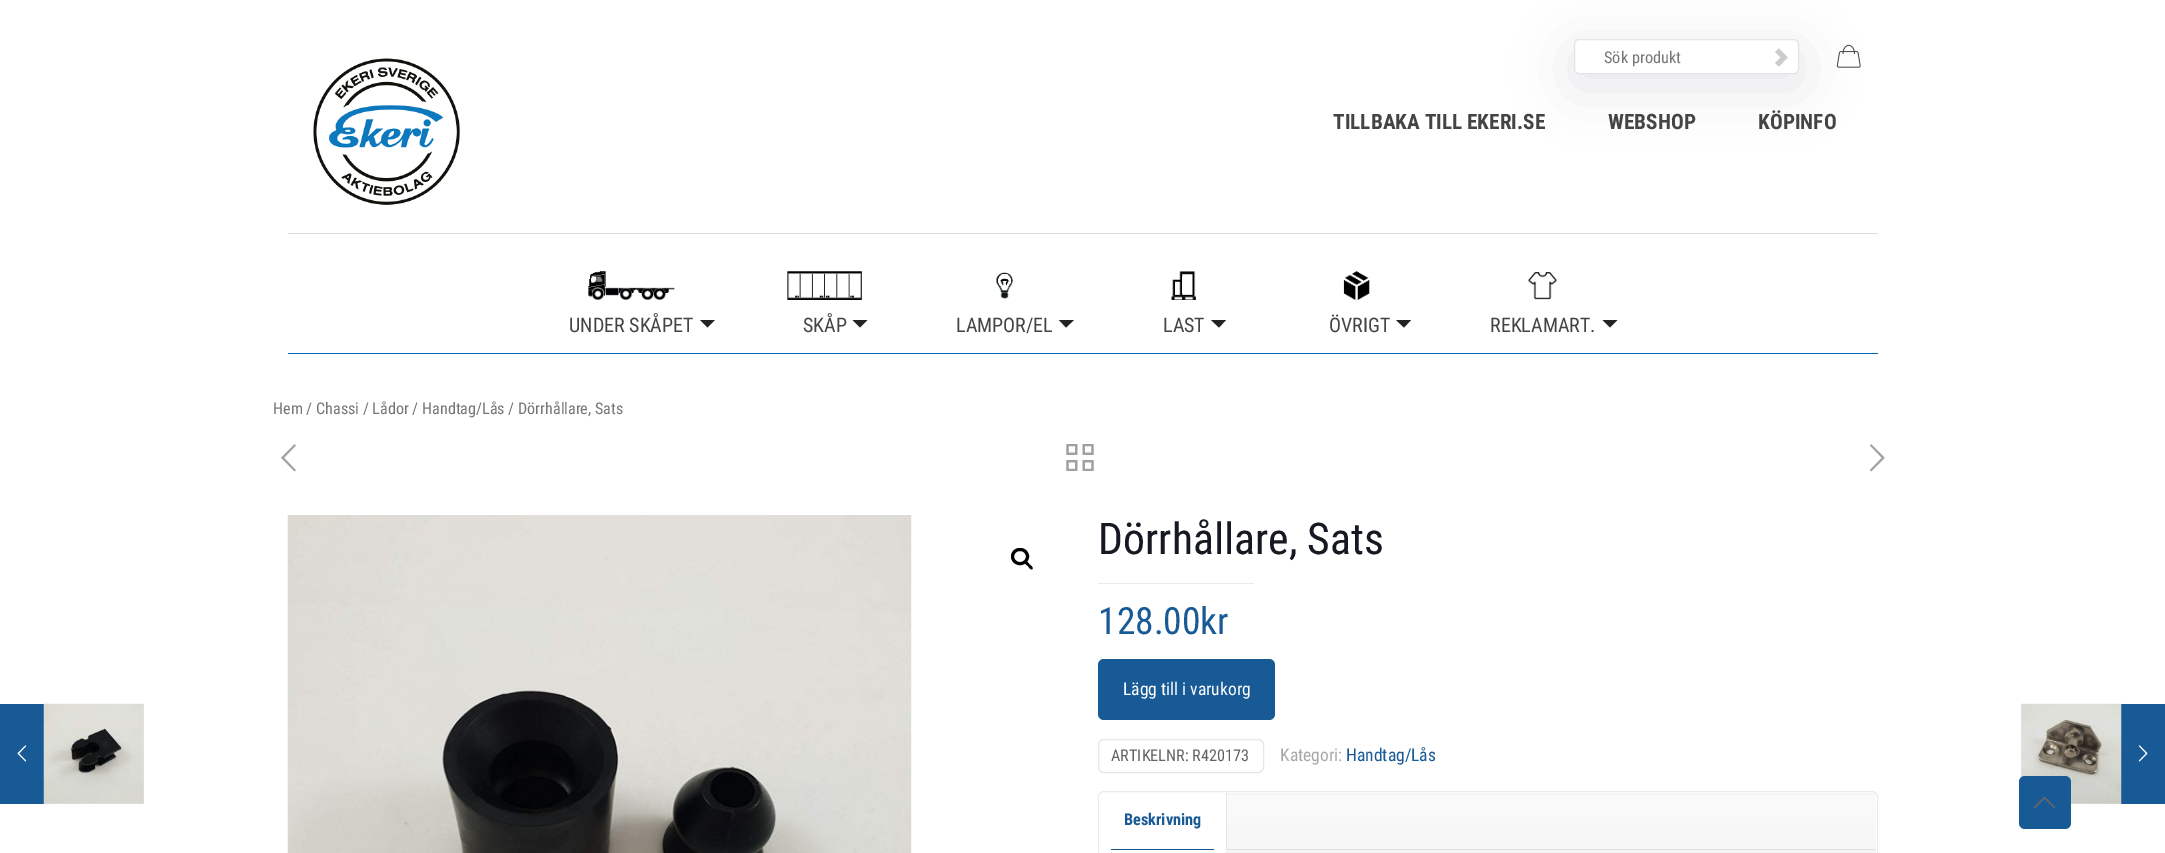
%!PS-Adobe-3.0
%%BoundingBox: 0 0 2165 853
%%LanguageLevel: 3
%%Pages: 1
%%EndComments
%%BeginProlog
/m { moveto } bind def
/l { lineto } bind def
/c { curveto } bind def
/h { closepath } bind def
/f { fill } bind def
/S { stroke } bind def
/q { gsave } bind def
/Q { grestore } bind def
/w { setlinewidth } bind def
/fn { [ exch dup neg 0 0 3 -1 roll 0 0 ] selectfont } def
/tx { moveto show } def
/bx { rectfill } def
/al { dup .setfillconstantalpha .setstrokeconstantalpha } def
/rr { 5 dict begin { /r /h /w /y /x } { exch def } forall
  x r add y moveto x w add y 2 copy h add r arct x w add y h add x 1 index r arct
  x y h add x y r arct x y 2 copy exch w add exch r arct closepath end } def
/sh { 12 dict begin { /a /b /q /h /w /y /x } { exch def } forall gsave /was 0 def
  9 -2 -9 { dup b mul 4 div /e exch def 1 sub .425 mul 2.718 exch exp 1 add a .99 .min exch div /now exch def
    1 1 now sub 1 was sub div sub al /was now def
    w h .min e 2 mul add 0 gt { x e sub y e sub w e 2 mul add h e 2 mul add
      q e add b .6 mul add w h .min 2 div e add .min 0 .max rr fill } if } for grestore end } def
/im { 5 dict begin { /h /w /y /x /name } { exch def } forall
  gsave x y translate w h scale
  w h 8 [w 0 0 h 0 0] name (r) file false 3 colorimage grestore end } def
%%EndProlog
%%BeginSetup
<< /PageSize [2165 853] /PageUsesTransparency true >> setpagedevice
%%EndSetup
%%Page: 1 1
0 .pushpdf14devicefilter
0 853 translate 1 -1 scale
4 setmiterlimit
1 setgray
0 0 2165 853 bx
0.094 0.353 0.584 setrgbcolor
0 704 44 100 bx
(image0.raw) 17 745 10 17 im
0.933 setgray
44 704 100 100 bx
(image1.raw) 43 703 101 101 im
(image2.raw) 1836 44 25 24 im
0.004 0.027 0.153 setrgbcolor
1574 51 225 35 5 29 0.1 sh
1 setgray
1574.5 39.5 224 34 4.5 rr q f Q
0.894 setgray
S
/RobotoCondensed-Regular 16.25 fn
0.463 setgray
(Sök produkt) 1604 63 tx
0.8 setgray
1775 52 m 1779 48.5 l 1787.5 57.5 l 1784 61 l h f
1775 63 m 1784 54 l 1787.5 57.5 l 1779 66.5 l h f
0.863 setgray
288 233 1590 1 bx
(image3.raw) 313 58 147 147 im
/RobotoCondensed-Bold 21.25 fn
0.267 setgray
(TILLBAKA TILL EKERI.SE) 1333 129 tx
(WEBSHOP) 1608 129 tx
(KÖPINFO) 1758 129 tx
0 0.412 0.71 setrgbcolor
288 353 1590 1 bx
(image4.raw) 588 271 87 29 im
/RobotoCondensed-Regular 20 fn
0.267 setgray
(UNDER SKÅPET) 569 332 tx
0.137 setgray
700 320 m 715 320 l 707.5 327.5 l h f
(image5.raw) 787 271 75 29 im
0.267 setgray
(SKÅP) 803 332 tx
0.137 setgray
852.5 320 m 867.5 320 l 860 327.5 l h f
(image6.raw) 996 272 17 27 im
0.267 setgray
(LAMPOR/EL) 956 332 tx
0.137 setgray
1059 320 m 1074 320 l 1066 327.5 l h f
(image7.raw) 1171 271 25 29 im
0.267 setgray
(LAST) 1163 332 tx
0.137 setgray
1211 320 m 1226 320 l 1219 327.5 l h f
(image8.raw) 1343 271 27 29 im
0.267 setgray
(ÖVRIGT) 1329 332 tx
0.137 setgray
1396 320 m 1411 320 l 1404 327.5 l h f
(image9.raw) 1528 272 29 28 im
0.267 setgray
(REKLAMART.) 1490 332 tx
0.137 setgray
1602.5 320 m 1617.5 320 l 1610 327.5 l h f
/RobotoCondensed-Regular 16.1 fn
0.463 setgray
(Hem / Chassi / Lådor / Handtag/Lås / Dörrhållare, Sats) 273 414 tx
(image10.raw) 281 444 15 28 im
(image11.raw) 1066 444 28 27 im
(image12.raw) 1870 444 15 28 im
(image13.raw) 287 515 625 338 im
0 setgray
3 w
1012.5 549.5 15 14 7 rr S
1025 562 m 1026.5 560.5 1029 563.5 1029.5 564.5 c 1030.5 565 1033.5 567.5 1032.5 569 c 1031 570.5 1028.5 567 1028 566 c 1027 565.5 1024 563 1025 562 c h f
/RobotoCondensed-Regular 43.75 fn
0.086 0.098 0.133 setrgbcolor
(Dörrhållare, Sats) 1098 554 tx
0.922 setgray
1098 583 156 1 bx
/RobotoCondensed-Regular 37.5 fn
0.094 0.353 0.584 setrgbcolor
(128.00kr) 1098 634 tx
1098 659 177 61 6 rr f
/RobotoCondensed-Regular 17.5 fn
1 setgray
(Lägg till i varukorg) 1123 695 tx
0.902 setgray
1 w
1098.5 739.5 165 33 5.5 rr S
/RobotoCondensed-Regular 16.25 fn
0.384 setgray
(ARTIKELNR: R420173) 1111 761 tx
/RobotoCondensed-Regular 17.5 fn
0.659 setgray
(Kategori:) 1280 761 tx
0.094 0.353 0.584 setrgbcolor
(Handtag/Lås) 1346 761 tx
0.922 setgray
1098.5 791.5 779 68 5.5 rr S
(image14.raw) 1099 793 777 56 im
0.886 setgray
1226 849 650 1 bx
0.08 al
0 setgray
1226 793 1 56 bx
1 al
1 setgray
1104 793 m 1226 793 l 1226 849 l 1099 849 l 1099 798 l 1099 795 1101 793 1104 793 c h f
/RobotoCondensed-Bold 16.25 fn
0.094 0.353 0.584 setrgbcolor
(Beskrivning) 1124 825 tx
1111 849 103 1 bx
0.961 setgray
1226 850 650 3 bx
0.094 0.353 0.584 setrgbcolor
2121 704 44 100 bx
(image15.raw) 2021 703 101 101 im
(image16.raw) 2138 745 10 17 im
2019 776 52 53 6 rr f
(image17.raw) 2033 796 23 13 im
.poppdf14devicefilter showpage
%%EOF
